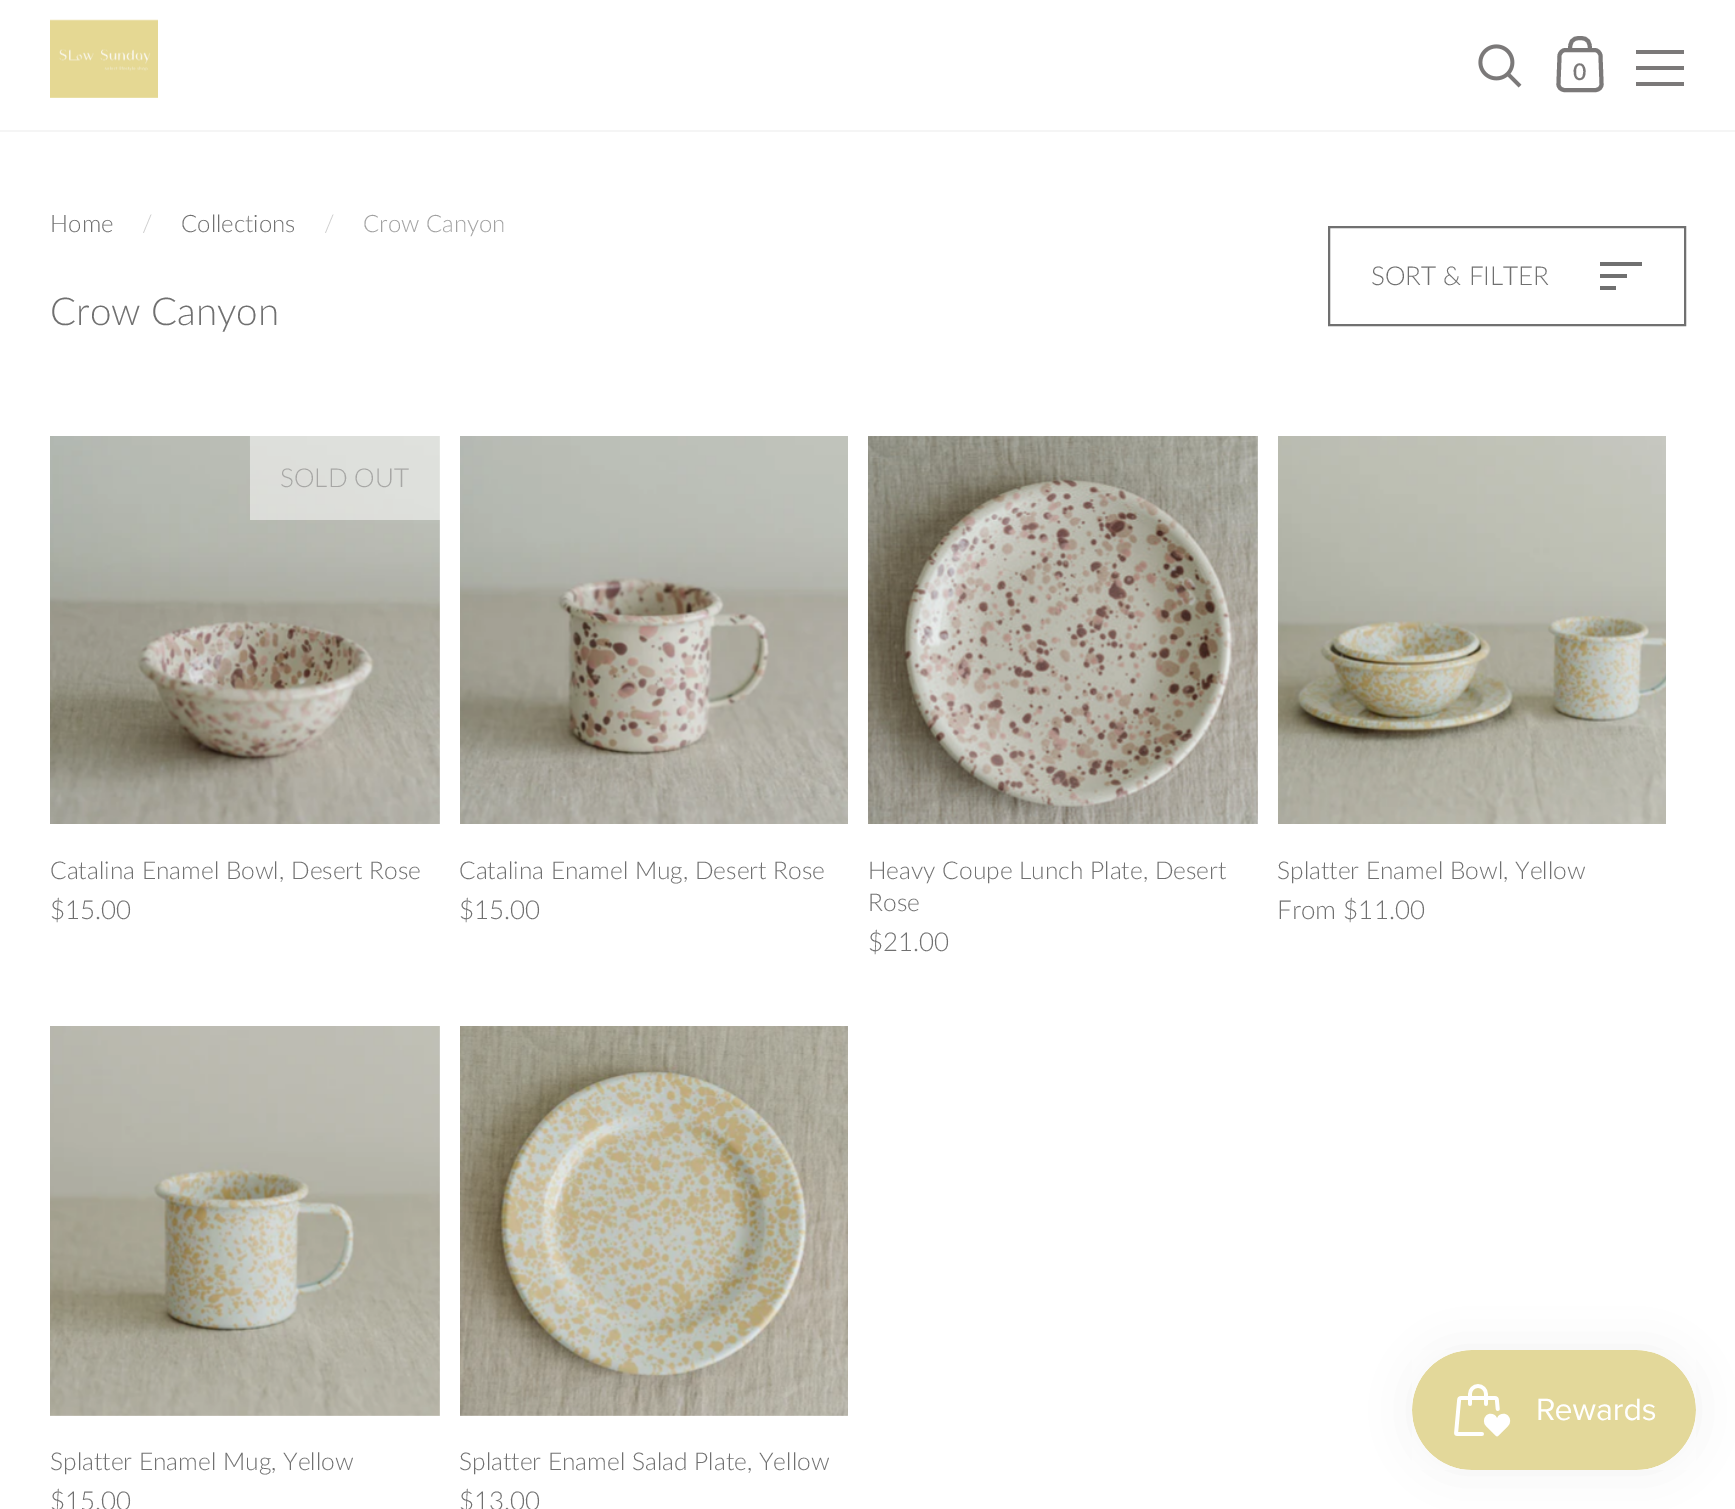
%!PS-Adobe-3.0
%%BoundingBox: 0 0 1735 1509
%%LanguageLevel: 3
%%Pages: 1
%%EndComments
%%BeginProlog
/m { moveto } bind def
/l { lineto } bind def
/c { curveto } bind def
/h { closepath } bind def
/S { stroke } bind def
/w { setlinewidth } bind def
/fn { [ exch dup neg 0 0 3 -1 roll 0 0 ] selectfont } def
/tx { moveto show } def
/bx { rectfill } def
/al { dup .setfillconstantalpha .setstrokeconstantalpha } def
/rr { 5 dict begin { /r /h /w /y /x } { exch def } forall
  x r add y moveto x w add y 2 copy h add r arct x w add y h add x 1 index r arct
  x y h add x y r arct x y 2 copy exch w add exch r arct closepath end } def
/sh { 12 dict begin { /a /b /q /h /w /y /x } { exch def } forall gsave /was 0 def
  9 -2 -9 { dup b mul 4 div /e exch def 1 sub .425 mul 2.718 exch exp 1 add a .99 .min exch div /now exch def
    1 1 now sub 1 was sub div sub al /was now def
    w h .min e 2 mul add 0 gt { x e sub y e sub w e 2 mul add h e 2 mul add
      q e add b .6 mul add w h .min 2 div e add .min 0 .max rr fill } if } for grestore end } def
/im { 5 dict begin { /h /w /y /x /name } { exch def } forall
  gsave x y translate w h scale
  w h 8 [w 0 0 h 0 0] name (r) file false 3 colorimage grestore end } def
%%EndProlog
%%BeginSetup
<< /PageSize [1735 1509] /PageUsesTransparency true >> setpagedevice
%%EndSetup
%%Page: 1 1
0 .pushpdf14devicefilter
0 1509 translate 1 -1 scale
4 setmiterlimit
1 setgray
0 0 1735 1509 bx
0.961 setgray
0 130 1735 2 bx
(image0.raw) 50 19 108 79 im
(image1.raw) 1478 44 44 44 im
0.482 0.475 0.475 setrgbcolor
4 w
1570 50 m 1565.5 50 l 1562.5 50 1560 52.5 1559.5 55.5 c 1558.5 83.5 l 1558 87 1561 90 1564.5 90 c 1595.5 90 l 1599 90 1602 87 1601.5 83.5 c 1600.5 55.5 l 1600 52.5 1597.5 50 1594.5 50 c 1590 50 l 1570 50 m 1570 42.5 1571.5 38 1580 38 c 1588.5 38 1590 42.5 1590 50 c 1570 50 m 1590 50 l S
/Lato-SemiBold 23 fn
(0) 1573 80 tx
1636 50 48 4 bx
1636 66 48 4 bx
1636 82 48 4 bx
/Lato-Light 24 fn
0.439 setgray
(Home) 50 232 tx
0.8 setgray
(/) 142 232 tx
0.439 setgray
(Collections) 181 232 tx
0.8 setgray
(/) 324 232 tx
0.631 setgray
(Crow Canyon) 363 232 tx
/Lato-Light 38.5 fn
0.439 setgray
(Crow Canyon) 50 325 tx
2 w
1329 227 356 98 rectstroke
/Lato-Light 26 fn
(SORT & FILTER) 1371 285 tx
1642 266 m 1600 266 l 1600 262 l 1642 262 l h 1627 278 m 1600 278 l 1600 274 l 1627 274 l h 1616 290 m 1600 290 l 1600 286 l 1616 286 l h eofill
(image2.raw) 50 436 390 388 im
0.5 al
1 setgray
250 436 190 84 bx
1 al
0.655 0.655 0.647 setrgbcolor
(SOLD OUT) 280 487 tx
/Lato-Light 24.5 fn
0.439 setgray
(Catalina Enamel Bowl, Desert Rose) 50 879 tx
/Lato-Light 26 fn
($15.00) 50 919 tx
(image3.raw) 460 436 388 388 im
/Lato-Light 24.5 fn
(Catalina Enamel Mug, Desert Rose) 459 879 tx
/Lato-Light 26 fn
($15.00) 459 919 tx
(image4.raw) 868 436 390 388 im
/Lato-Light 24.5 fn
(Heavy Coupe Lunch Plate, Desert) 868 879 tx
(Rose) 868 911 tx
/Lato-Light 26 fn
($21.00) 868 951 tx
(image5.raw) 1278 436 388 388 im
/Lato-Light 24.5 fn
(Splatter Enamel Bowl, Yellow) 1277 879 tx
/Lato-Light 26 fn
(From $11.00) 1277 919 tx
0.969 setgray
50 1026 390 390 bx
(image6.raw) 50 1026 390 390 im
/Lato-Light 24.5 fn
0.439 setgray
(Splatter Enamel Mug, Yellow) 50 1470 tx
/Lato-Light 26 fn
($15.00) 50 1510 tx
(image7.raw) 460 1026 388 390 im
/Lato-Light 24.5 fn
(Splatter Enamel Salad Plate, Yellow) 459 1470 tx
/Lato-Light 26 fn
($13.00) 459 1510 tx
0 setgray
1412 1350 284 120 60 25 0.05 sh
(image8.raw) 1412 1350 284 120 im
.poppdf14devicefilter showpage
%%EOF
